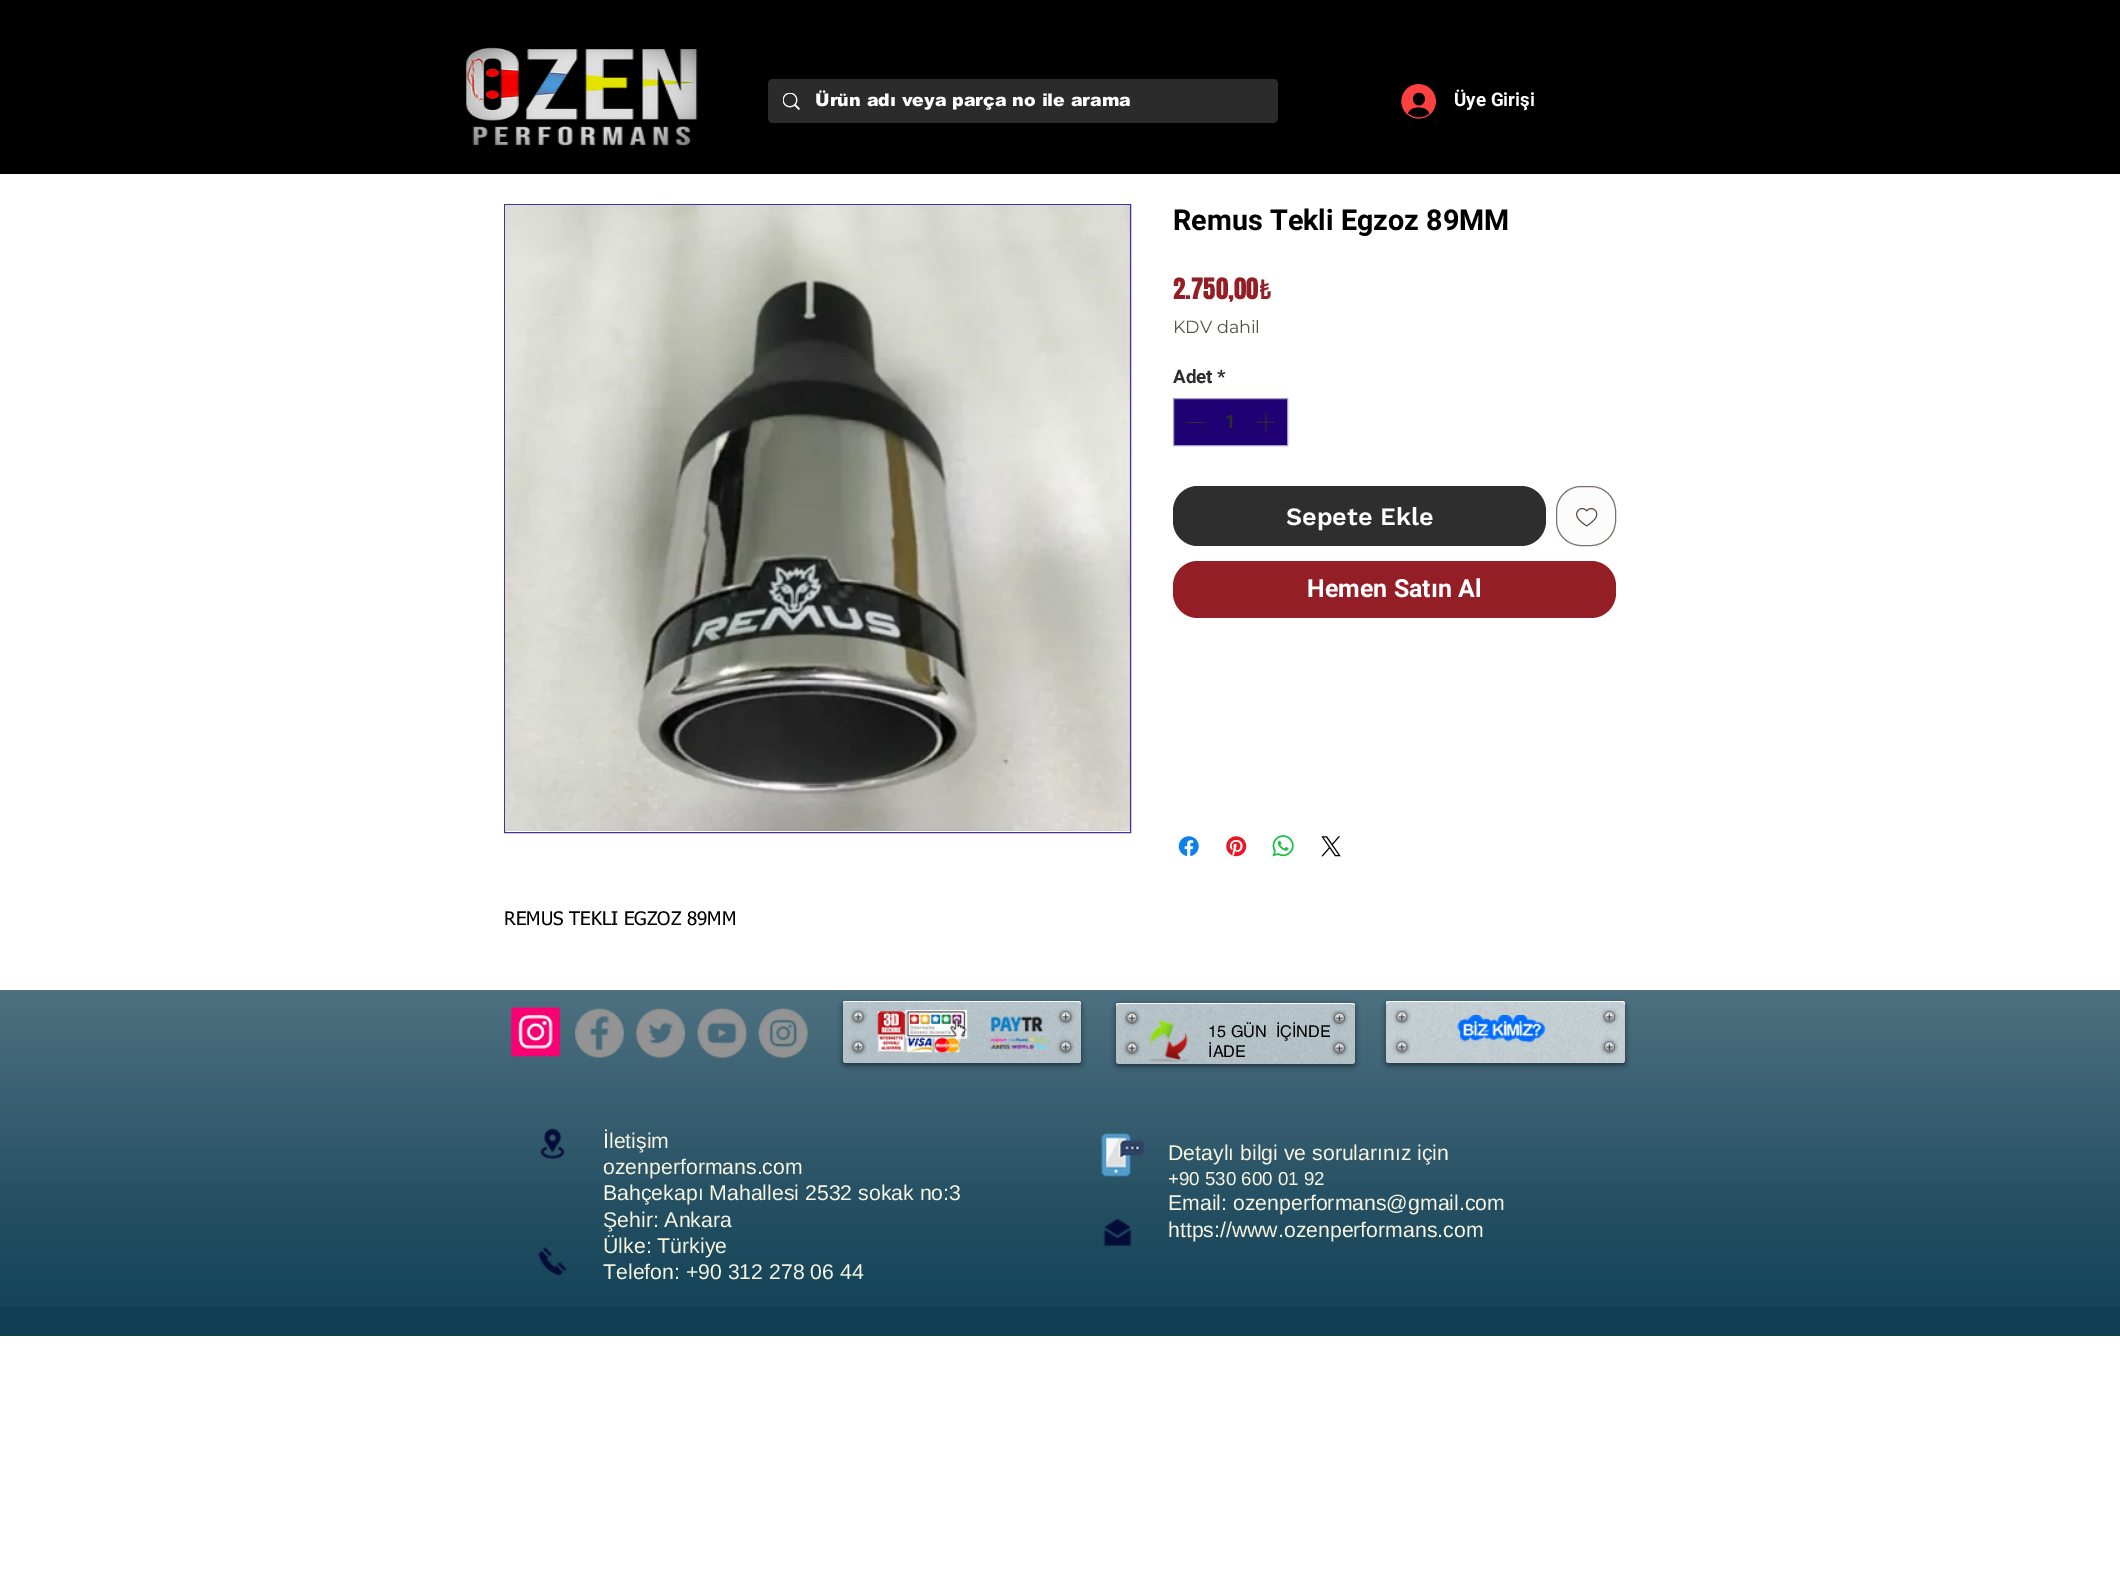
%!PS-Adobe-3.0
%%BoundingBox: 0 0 2120 1575
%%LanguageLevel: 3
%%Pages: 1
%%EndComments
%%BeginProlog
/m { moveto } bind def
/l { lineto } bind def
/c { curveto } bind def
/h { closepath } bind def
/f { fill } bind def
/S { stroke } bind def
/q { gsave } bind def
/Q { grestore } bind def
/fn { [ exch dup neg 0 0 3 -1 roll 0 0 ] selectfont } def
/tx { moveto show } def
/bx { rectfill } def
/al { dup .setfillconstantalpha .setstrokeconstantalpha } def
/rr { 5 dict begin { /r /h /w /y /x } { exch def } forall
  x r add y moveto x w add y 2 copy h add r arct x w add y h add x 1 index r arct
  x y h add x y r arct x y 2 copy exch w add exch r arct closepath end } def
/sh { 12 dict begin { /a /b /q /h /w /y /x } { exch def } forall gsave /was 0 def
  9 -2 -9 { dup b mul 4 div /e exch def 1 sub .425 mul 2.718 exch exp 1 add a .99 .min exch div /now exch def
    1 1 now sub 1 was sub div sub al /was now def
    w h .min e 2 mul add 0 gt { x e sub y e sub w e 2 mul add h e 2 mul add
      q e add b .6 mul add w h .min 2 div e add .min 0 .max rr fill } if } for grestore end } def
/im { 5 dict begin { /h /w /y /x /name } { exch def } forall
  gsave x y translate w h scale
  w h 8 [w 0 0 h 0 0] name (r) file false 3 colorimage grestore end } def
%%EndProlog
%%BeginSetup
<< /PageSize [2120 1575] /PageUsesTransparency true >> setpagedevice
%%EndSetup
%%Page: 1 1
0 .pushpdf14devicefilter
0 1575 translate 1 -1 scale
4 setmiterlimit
1 setgray
0 0 2120 1575 bx
0 setgray
0 0 2120 174 bx
(image0.raw) 465 47 233 99 im
0.169 setgray
768 79 510 44 5 rr f
(image1.raw) 783 93 17 17 im
/arial-Black 17.5 fn
1 setgray
(Ürün adı veya parça no ile arama) 815 106 tx
(image2.raw) 1401 84 35 35 im
/Roboto-Bold 18.75 fn
(Üye Girişi) 1454 106 tx
/Roboto-Bold 28.75 fn
0 setgray
(Remus Tekli Egzoz 89MM) 1173 230 tx
/Anton-Regular 25 fn
0.58 0.118 0.145 setrgbcolor
(2.750,00₺) 1173 299 tx
/Montserrat-Regular 17.5 fn
0.349 0.318 0.302 setrgbcolor
(KDV dahil) 1173 333 tx
/Roboto-Bold 18.75 fn
0.184 0.18 0.18 setrgbcolor
(Adet) 1173 383 tx
(*) 1217 383 tx
0.125 0.004 0.455 setrgbcolor
1173.5 398.5 m 1287.5 398.5 l 1287.5 445.5 l 1173.5 445.5 l h q f Q
0.651 0.6 0.78 setrgbcolor
S
0.184 0.18 0.18 setrgbcolor
1187 422 18 1 bx
(1) 1225 428 tx
(image3.raw) 1257 413 18 18 im
1173 486 373 60 25 rr f
/WorkSans-SemiBold 25 fn
1 setgray
(Sepete Ekle) 1286 525 tx
0.988 setgray
1556.5 486.5 59 59 24.5 rr q f Q
0.482 0.451 0.435 setrgbcolor
S
(image4.raw) 1576 508 22 19 im
0.58 0.118 0.145 setrgbcolor
1173 561 443 57 25 rr f
/Roboto-Bold 25 fn
1 setgray
(Hemen Satın Al) 1307 597 tx
(image5.raw) 1178 836 21 21 im
(image6.raw) 1226 836 21 21 im
(image7.raw) 1272 835 22 22 im
(image8.raw) 1321 836 20 21 im
0.29 0.184 0.588 setrgbcolor
504.5 204.5 626 628 rectstroke
(image9.raw) 505 205 625 626 im
/tahoma-Regular 18.75 fn
0 setgray
(REMUS TEKLI EGZOZ 89MM) 504 925 tx
0.063 0.247 0.329 setrgbcolor
0 990 2120 346 bx
(image10.raw) 0 990 2120 317 im
(image11.raw) 511 1007 49 50 im
(image12.raw) 575 1008 49 50 im
(image13.raw) 636 1008 49 50 im
(image14.raw) 697 1008 50 50 im
(image15.raw) 758 1008 50 50 im
q
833 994 m 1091 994 l 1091 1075 l 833 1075 l h 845.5 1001 m 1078.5 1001 l 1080 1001 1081 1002 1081 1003.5 c 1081 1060.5 l 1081 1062 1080 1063 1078.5 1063 c 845.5 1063 l 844 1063 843 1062 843 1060.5 c 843 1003.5 l 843 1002 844 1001 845.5 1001 c h eoclip newpath
0 setgray
843 1004 238 61 2.5 3 0.53 sh
Q
0.62 al
1 setgray
843 1001 238 62 2.5 rr f
1 al
(image16.raw) 843 1001 238 61 im
0.92 al
845 1002 m 1079 1002 l 1081 1004 l 1081 1005 l 1081 1004 l 1081 1002 1080 1001 1078 1001 c 846 1001 l 844 1001 843 1002 843 1003 c h f
1 al
(image17.raw) 850 1008 17 18 im
(image18.raw) 877 1010 91 43 im
(image19.raw) 988 1016 62 34 im
(image20.raw) 1057 1008 17 18 im
(image21.raw) 850 1038 17 18 im
(image22.raw) 1057 1038 17 18 im
q
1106 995 m 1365 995 l 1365 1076 l 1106 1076 l h 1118.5 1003 m 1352.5 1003 l 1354 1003 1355 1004 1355 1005.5 c 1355 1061.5 l 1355 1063 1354 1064 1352.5 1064 c 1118.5 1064 l 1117 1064 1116 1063 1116 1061.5 c 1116 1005.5 l 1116 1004 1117 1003 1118.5 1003 c h eoclip newpath
0 setgray
1116 1005 239 61 2.5 3 0.53 sh
Q
0.62 al
1116 1003 239 61 2.5 rr f
1 al
(image23.raw) 1116 1003 239 61 im
0.92 al
1119 1004 m 1352 1004 l 1354 1004 1355 1005 1355 1006 c 1355 1004 1354 1003 1352 1003 c 1118 1003 l 1116 1004 l 1116 1006 l 1116 1005 1117 1004 1119 1004 c h f
1 al
(image24.raw) 1123 1010 18 17 im
(image25.raw) 1148 1020 41 42 im
(image26.raw) 1331 1010 17 17 im
(image27.raw) 1123 1040 18 17 im
(image28.raw) 1331 1040 17 17 im
q
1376 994 m 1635 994 l 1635 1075 l 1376 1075 l h 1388.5 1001 m 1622.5 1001 l 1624 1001 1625 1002 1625 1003.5 c 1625 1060.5 l 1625 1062 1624 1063 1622.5 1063 c 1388.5 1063 l 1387 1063 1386 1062 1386 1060.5 c 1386 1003.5 l 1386 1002 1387 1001 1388.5 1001 c h eoclip newpath
0 setgray
1386 1004 239 61 2.5 3 0.53 sh
Q
0.7 al
1386 1001 239 62 2.5 rr f
1 al
(image29.raw) 1386 1001 239 61 im
0.92 al
1389 1002 m 1622 1002 l 1624 1002 1625 1004 1625 1005 c 1625 1003 1625 1001 1622 1001 c 1388 1001 l 1386 1001 1386 1003 1386 1005 c 1386 1004 1387 1002 1389 1002 c h f
1 al
(image30.raw) 1393 1008 18 18 im
(image31.raw) 1457 1015 89 28 im
(image32.raw) 1601 1008 17 18 im
(image33.raw) 1393 1038 18 18 im
(image34.raw) 1601 1038 17 18 im
/helvetica-Regular 16.25 fn
0 setgray
(15 GÜN  İÇİNDE) 1208 1037 tx
(İADE) 1208 1057 tx
(image35.raw) 540 1128 25 31 im
/LiberationSans-Regular 21.25 fn
0.969 0.961 0.882 setrgbcolor
(İletişim) 603 1148 tx
(ozenperformans.com) 603 1174 tx
(Bahçekapı Mahallesi 2532 sokak no:3) 603 1200 tx
(Şehir: Ankara) 603 1227 tx
(Ülke: Türkiye) 603 1253 tx
(Telefon: +90 312 278 06 44) 603 1279 tx
(image36.raw) 1101 1133 44 44 im
(Detaylı bilgi ve sorularınız için) 1168 1160 tx
/LiberationSans-Regular 18.75 fn
(+90 530 600 01 92) 1168 1185 tx
/LiberationSans-Regular 21.25 fn
(Email: ozenperformans@gmail.com) 1168 1210 tx
(https://www.ozenperformans.com) 1168 1237 tx
(image37.raw) 1103 1218 29 29 im
(image38.raw) 538 1247 29 29 im
.poppdf14devicefilter showpage
%%EOF
